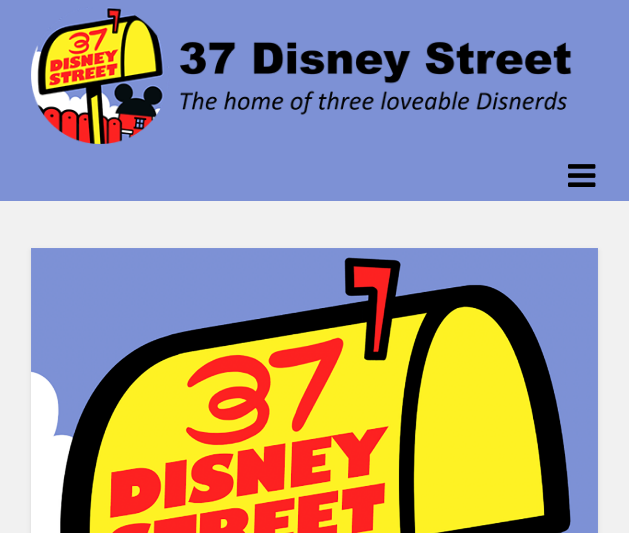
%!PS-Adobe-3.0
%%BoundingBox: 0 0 629 533
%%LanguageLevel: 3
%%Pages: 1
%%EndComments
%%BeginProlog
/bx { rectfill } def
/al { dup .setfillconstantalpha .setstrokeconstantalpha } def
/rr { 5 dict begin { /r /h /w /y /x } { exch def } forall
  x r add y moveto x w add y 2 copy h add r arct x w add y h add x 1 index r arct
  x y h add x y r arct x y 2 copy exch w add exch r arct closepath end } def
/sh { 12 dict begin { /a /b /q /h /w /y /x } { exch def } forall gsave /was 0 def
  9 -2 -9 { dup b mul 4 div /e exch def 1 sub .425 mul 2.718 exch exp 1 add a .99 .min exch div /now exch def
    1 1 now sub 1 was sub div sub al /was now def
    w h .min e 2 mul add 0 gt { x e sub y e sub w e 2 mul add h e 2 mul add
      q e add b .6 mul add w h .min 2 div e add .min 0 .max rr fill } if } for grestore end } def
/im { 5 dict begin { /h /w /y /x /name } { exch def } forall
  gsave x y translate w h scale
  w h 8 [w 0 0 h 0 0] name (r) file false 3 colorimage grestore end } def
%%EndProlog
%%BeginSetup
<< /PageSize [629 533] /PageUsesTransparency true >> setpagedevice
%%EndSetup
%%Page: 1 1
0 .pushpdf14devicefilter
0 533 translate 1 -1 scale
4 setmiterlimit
0.945 setgray
0 0 629 533 bx
0.49 0.569 0.835 setrgbcolor
0 0 629 201 bx
(image0.raw) 31 7 541 137 im
(image1.raw) 568 164 28 23 im
0 setgray
31 250 567 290 1 2 0.1 sh
(image2.raw) 31 248 567 285 im
.poppdf14devicefilter showpage
%%EOF
